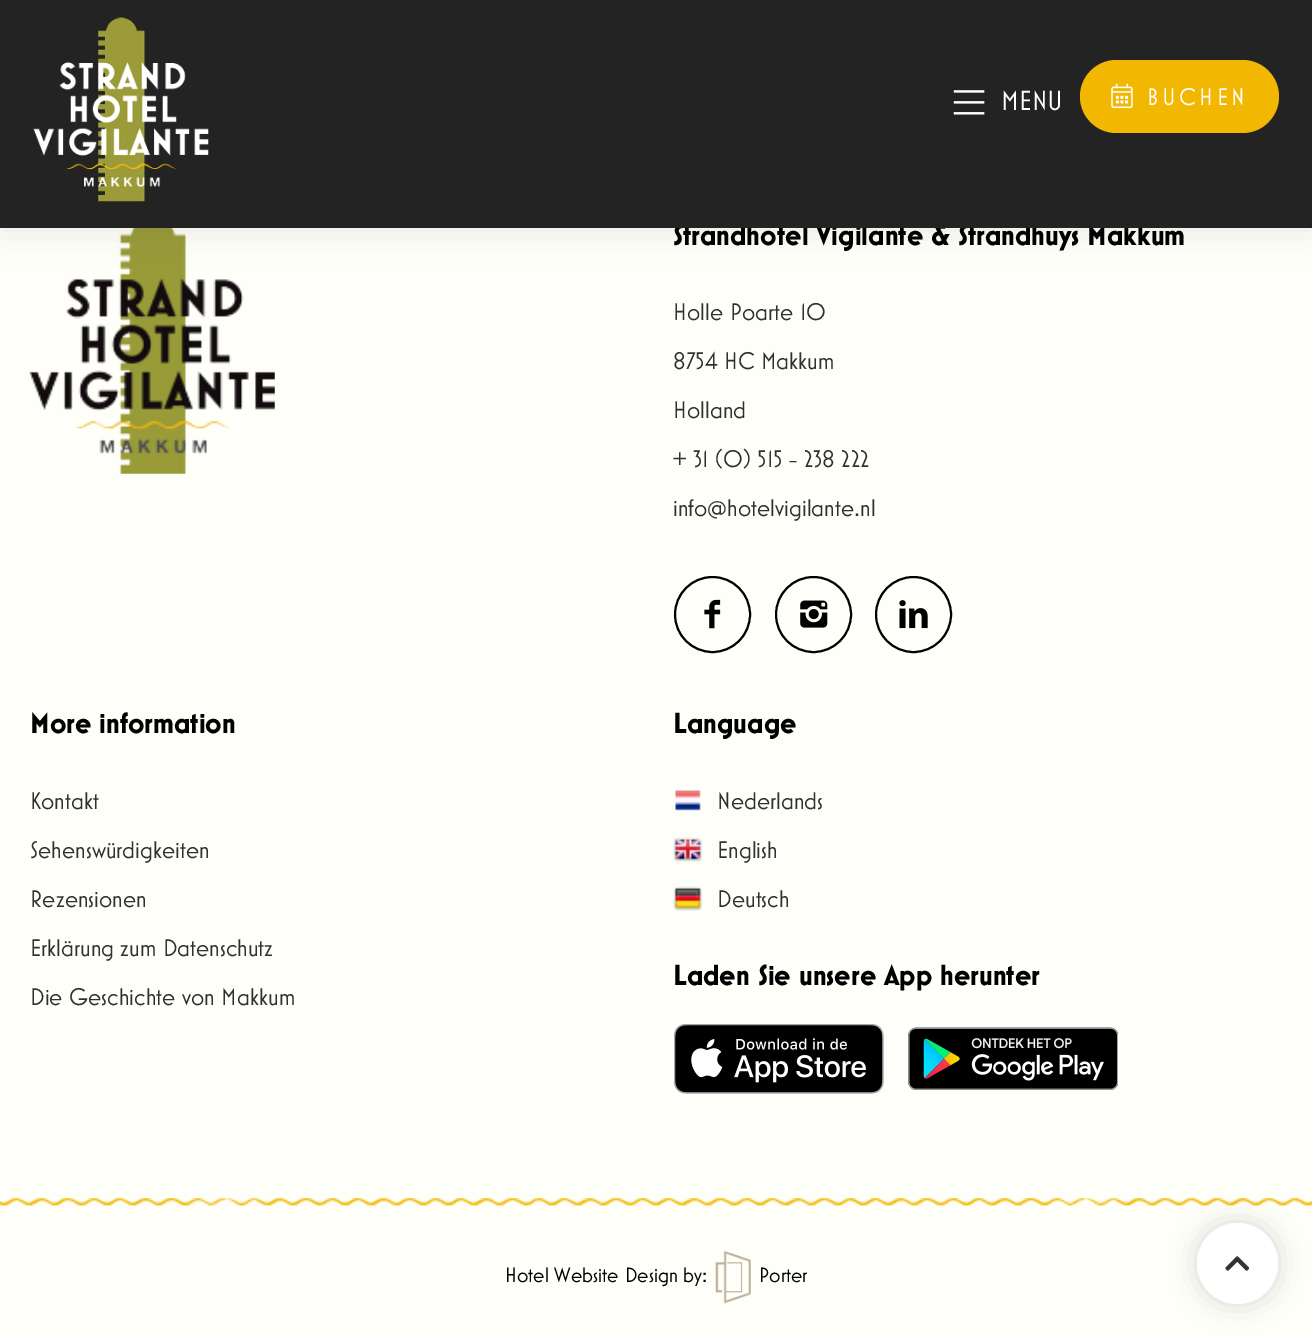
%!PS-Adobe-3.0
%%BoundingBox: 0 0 1312 1338
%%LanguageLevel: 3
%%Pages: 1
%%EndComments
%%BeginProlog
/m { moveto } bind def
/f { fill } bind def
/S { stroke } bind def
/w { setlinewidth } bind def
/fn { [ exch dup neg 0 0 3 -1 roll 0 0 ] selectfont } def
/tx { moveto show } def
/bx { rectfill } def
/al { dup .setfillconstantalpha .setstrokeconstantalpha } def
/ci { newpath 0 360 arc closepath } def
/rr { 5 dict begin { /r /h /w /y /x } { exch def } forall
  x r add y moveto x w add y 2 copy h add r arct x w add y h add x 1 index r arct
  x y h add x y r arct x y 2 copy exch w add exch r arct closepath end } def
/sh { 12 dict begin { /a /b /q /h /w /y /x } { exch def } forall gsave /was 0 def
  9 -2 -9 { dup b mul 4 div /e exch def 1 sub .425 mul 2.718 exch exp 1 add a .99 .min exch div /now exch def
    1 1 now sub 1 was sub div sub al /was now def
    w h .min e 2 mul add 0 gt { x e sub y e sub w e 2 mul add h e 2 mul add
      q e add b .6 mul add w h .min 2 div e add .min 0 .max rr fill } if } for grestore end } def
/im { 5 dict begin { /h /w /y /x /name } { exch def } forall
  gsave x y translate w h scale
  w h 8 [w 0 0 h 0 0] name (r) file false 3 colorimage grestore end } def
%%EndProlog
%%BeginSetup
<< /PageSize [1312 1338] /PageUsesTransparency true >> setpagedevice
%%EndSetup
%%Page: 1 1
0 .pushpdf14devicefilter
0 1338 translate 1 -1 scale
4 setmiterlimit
1 1 0.98 setrgbcolor
0 0 1312 1338 bx
(image3.raw) 29 228 246 246 im
0 setgray
0 0 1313 228 0 17.5 0.1 sh
/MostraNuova-Bold 29.75 fn
(Strandhotel Vigilante & Strandhuys Makkum) 673 245 tx
0.137 setgray
0 0 1312 228 bx
(image0.raw) 33 17 176 185 im
(image1.raw) 953 90 32 25 im
/MostraNuova-Light 28 fn
1 setgray
(MENU) 1001 110 tx
0.949 0.718 0.004 setrgbcolor
1080 60 199 73 36.5 rr f
(image2.raw) 1111 83 22 26 im
/MostraNuova-Light 24.5 fn
1 setgray
1147 105 m 3.5 0 (BUCHEN) ashow
0.188 setgray
(Holle Poarte 10) 673 320 tx
(8754 HC Makkum) 673 369 tx
(Holland) 673 418 tx
(+ 31 \(0\) 515 - 238 222) 673 467 tx
(info@hotelvigilante.nl) 673 516 tx
0 setgray
2 w
712.5 614.5 37.5 ci S
(image4.raw) 704 599 17 30 im
813.5 614.5 37.5 ci S
(image5.raw) 800 600 28 28 im
913.5 614.5 37.5 ci S
(image6.raw) 899 600 29 29 im
/MostraNuova-Bold 29.75 fn
(More information) 30 733 tx
/MostraNuova-Light 24.5 fn
0.188 setgray
(Kontakt) 30 809 tx
(Sehenswürdigkeiten) 30 858 tx
(Rezensionen) 30 907 tx
(Erklärung zum Datenschutz) 30 956 tx
(Die Geschichte von Makkum) 30 1005 tx
/MostraNuova-Bold 29.75 fn
0 setgray
(Language) 673 733 tx
(image7.raw) 675 790 26 21 im
/MostraNuova-Light 24.5 fn
0.188 setgray
(Nederlands) 717 809 tx
(image8.raw) 673 837 29 25 im
(English) 717 858 tx
(image9.raw) 673 886 29 25 im
(Deutsch) 717 907 tx
/MostraNuova-Bold 29.75 fn
0 setgray
(Laden Sie unsere App herunter) 673 985 tx
(image10.raw) 674 1024 210 70 im
(image11.raw) 908 1027 210 63 im
(image12.raw) 0 1198 1312 8 im
/MostraNuova-Light 21 fn
(Hotel Website Design by:) 505 1282 tx
(image13.raw) 715 1251 36 53 im
(Porter) 759 1282 tx
1197 1223 81 81 40.5 13 0.15 sh
1 setgray
1237.5 1263.5 40.5 ci f
(image14.raw) 1225 1256 25 15 im
.poppdf14devicefilter showpage
%%EOF
